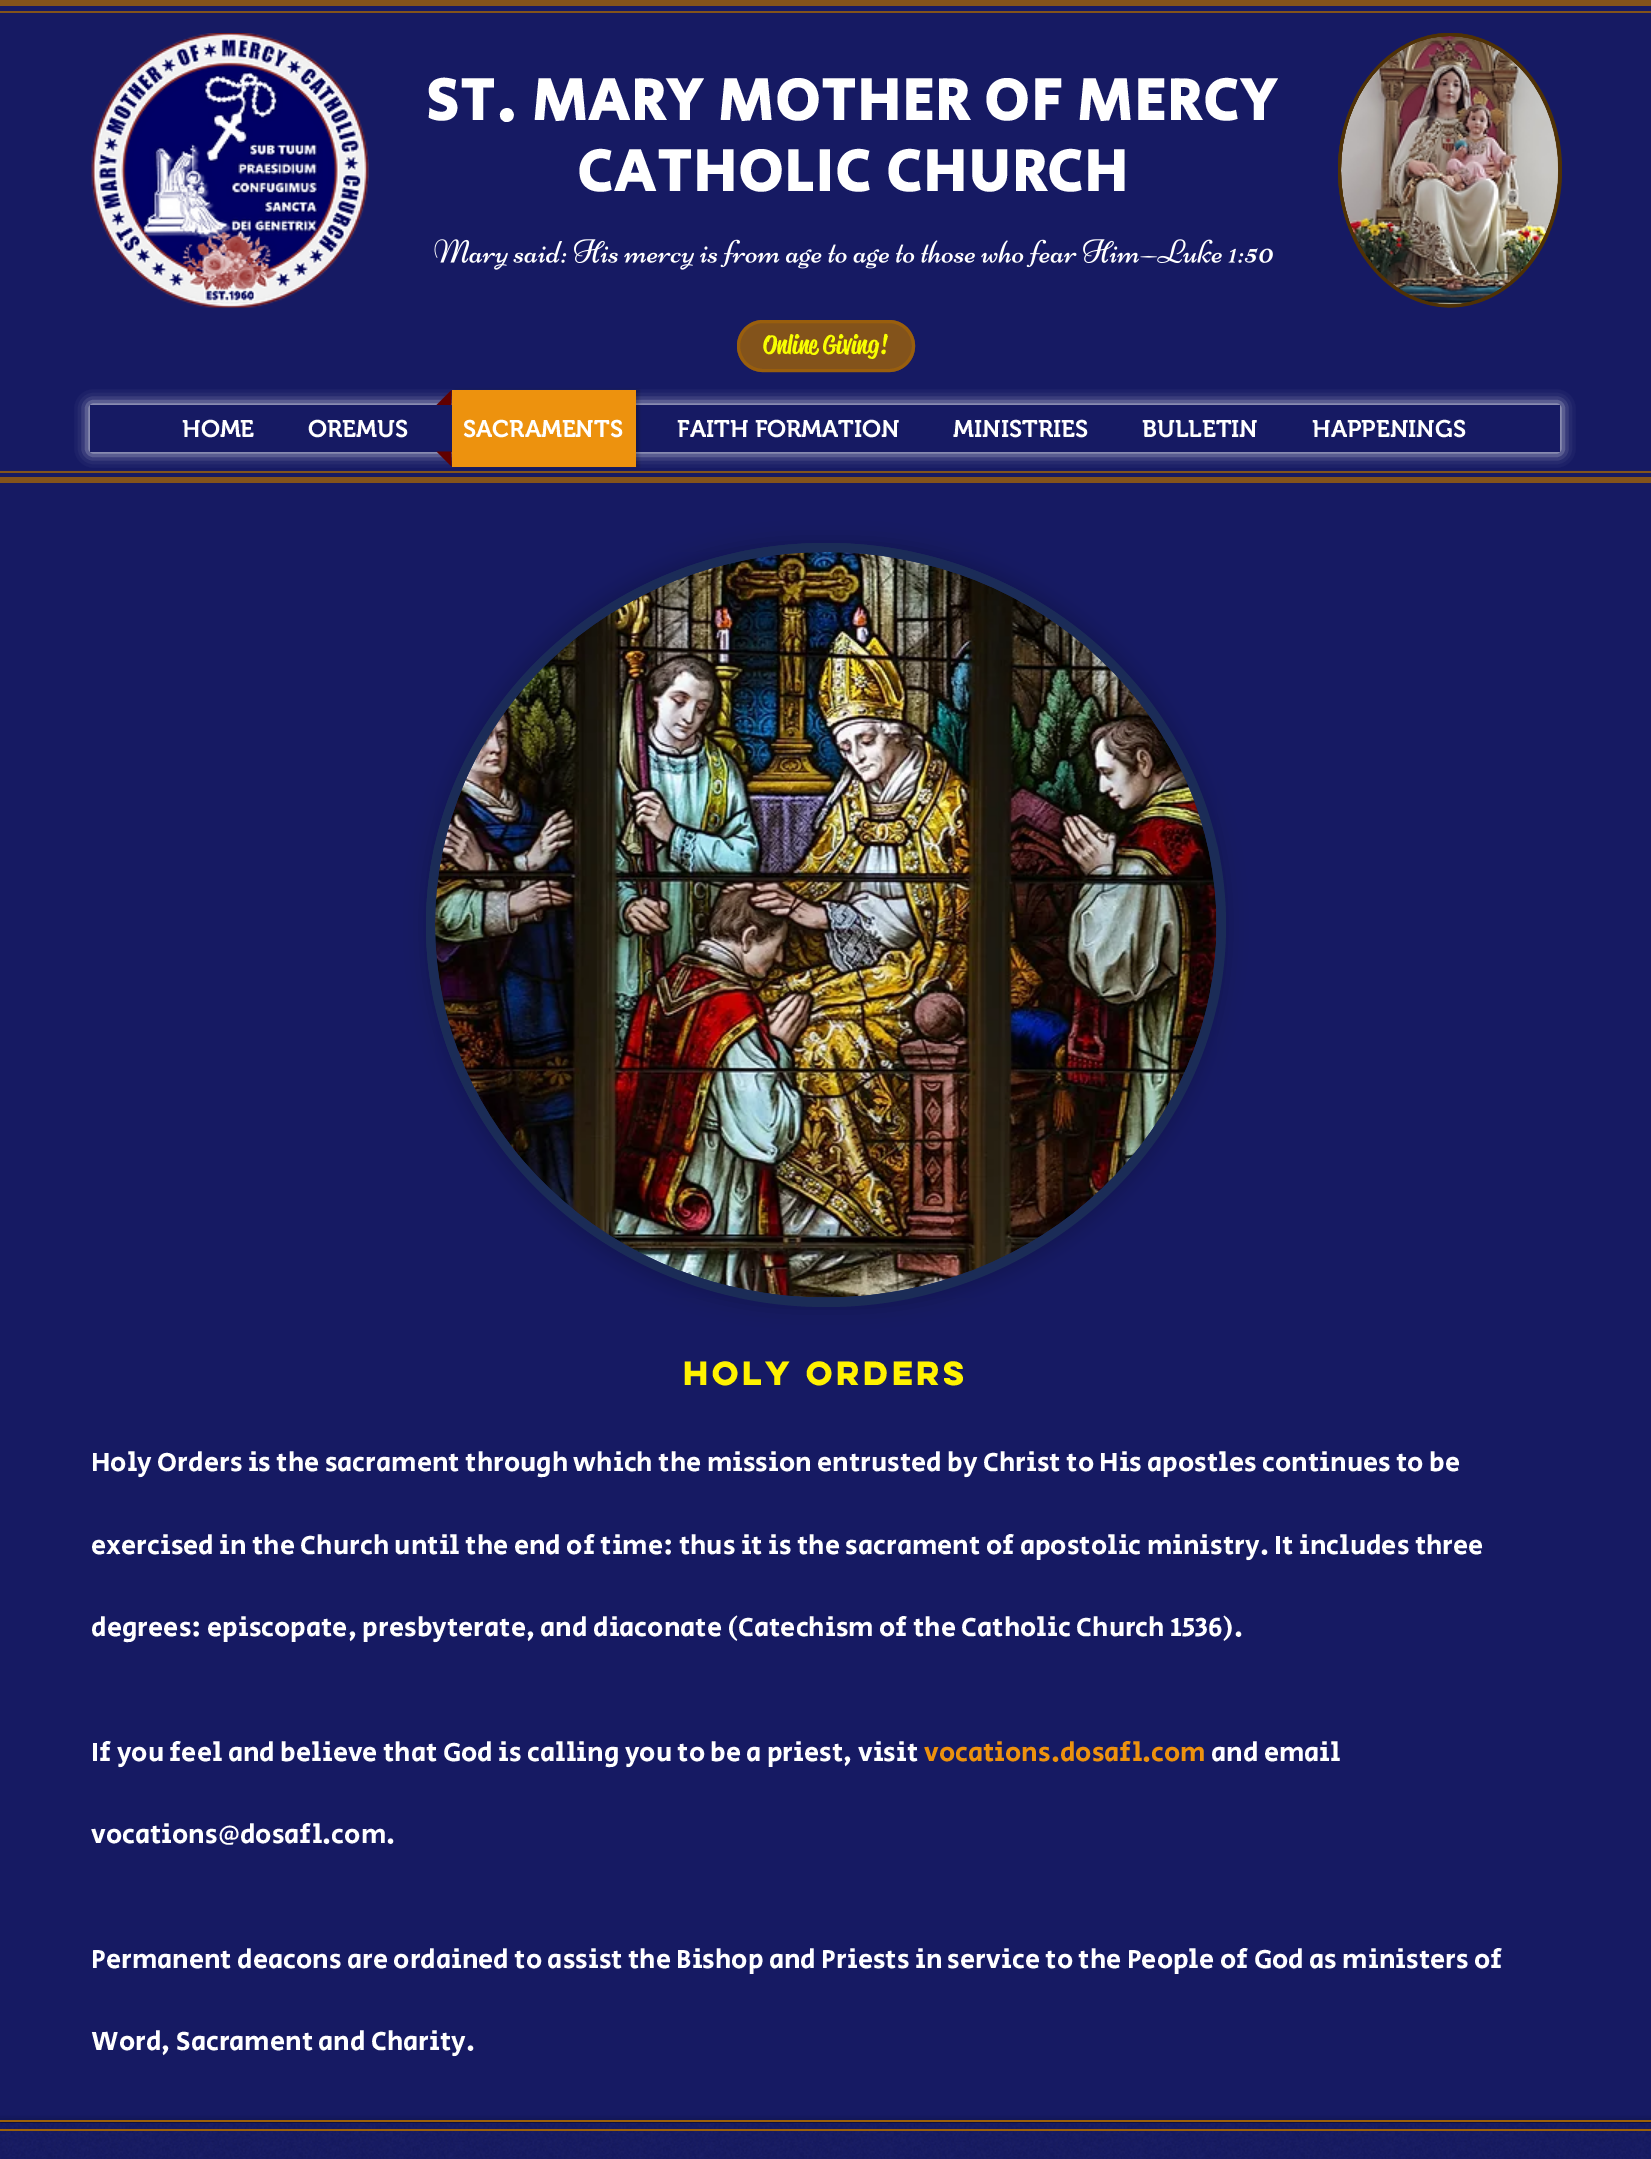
%!PS-Adobe-3.0
%%BoundingBox: 0 0 1651 2159
%%LanguageLevel: 3
%%Pages: 1
%%EndComments
%%BeginProlog
/m { moveto } bind def
/l { lineto } bind def
/c { curveto } bind def
/h { closepath } bind def
/f { fill } bind def
/S { stroke } bind def
/q { gsave } bind def
/Q { grestore } bind def
/w { setlinewidth } bind def
/fn { [ exch dup neg 0 0 3 -1 roll 0 0 ] selectfont } def
/tx { moveto show } def
/bx { rectfill } def
/al { dup .setfillconstantalpha .setstrokeconstantalpha } def
/rr { 5 dict begin { /r /h /w /y /x } { exch def } forall
  x r add y moveto x w add y 2 copy h add r arct x w add y h add x 1 index r arct
  x y h add x y r arct x y 2 copy exch w add exch r arct closepath end } def
/sh { 12 dict begin { /a /b /q /h /w /y /x } { exch def } forall gsave /was 0 def
  9 -2 -9 { dup b mul 4 div /e exch def 1 sub .425 mul 2.718 exch exp 1 add a .99 .min exch div /now exch def
    1 1 now sub 1 was sub div sub al /was now def
    w h .min e 2 mul add 0 gt { x e sub y e sub w e 2 mul add h e 2 mul add
      q e add b .6 mul add w h .min 2 div e add .min 0 .max rr fill } if } for grestore end } def
/im { 5 dict begin { /h /w /y /x /name } { exch def } forall
  gsave x y translate w h scale
  w h 8 [w 0 0 h 0 0] name (r) file false 3 colorimage grestore end } def
%%EndProlog
%%BeginSetup
<< /PageSize [1651 2159] /PageUsesTransparency true >> setpagedevice
%%EndSetup
%%Page: 1 1
0 .pushpdf14devicefilter
0 2159 translate 1 -1 scale
4 setmiterlimit
0.086 0.102 0.388 setrgbcolor
0 0 1651 2159 bx
0.514 0.325 0.106 setrgbcolor
0 0 1651 6 bx
0 477 1651 6 bx
0 11 1651 2 bx
0 471 1651 2 bx
(image0.raw) 91 33 278 275 im
/SecularOne-Bold 60 fn
1 setgray
426 120 m 1.8 0 (ST. MARY MOTHER OF MERCY) ashow
577 191 m 1.8 0 (CATHOLIC CHURCH) ashow
(image1.raw) 434 239 839 31 im
0.31 0.192 0.02 setrgbcolor
1450 33 m 1512 33 1562 94.5 1562 170 c 1562 245.5 1512 307 1450 307 c 1388 307 1338 245.5 1338 170 c 1338 94.5 1388 33 1450 33 c h f
3 w
1450 34.5 m 1510.5 34.5 1560 95.5 1560 170 c 1560 245 1510.5 306 1450 306 c 1389 306 1339.5 245 1339.5 170 c 1339.5 95.5 1389 34.5 1450 34.5 c h S
(image2.raw) 1341 36 218 269 im
0.514 0.325 0.106 setrgbcolor
737 320 178 52 26 rr f
0.8 al
0.62 0.38 0.035 setrgbcolor
738.5 321.5 175 49 24.5 rr S
/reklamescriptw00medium-Medium 25.5 fn
1 al
0.973 1 0 setrgbcolor
(Online Giving!) 763 353 tx
1 setgray
90 405 1470 47 0 7 1 sh
0.086 0.102 0.388 setrgbcolor
90 405 1470 47 bx
/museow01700-SemiBold 24 fn
1 setgray
(HOME) 182 437 tx
(OREMUS) 308 437 tx
0 setgray
455 390 184 77 0 1.5 0.2 sh
0.38 0 0 setrgbcolor
451.5 405 m 436.5 405 l 451.5 390 l h f
0.929 0.573 0.055 setrgbcolor
452 390 184 77 bx
0.38 0 0 setrgbcolor
436.5 451.5 m 451.5 451.5 l 451.5 466.5 l h f
1 setgray
(SACRAMENTS) 463 437 tx
(FAITH FORMATION) 677 437 tx
(MINISTRIES) 953 437 tx
(BULLETIN) 1142 437 tx
(HAPPENINGS) 1312 437 tx
0 setgray
426 543 800 764 382 10.5 0.2 sh
0.106 0.173 0.341 setrgbcolor
826 543 m 1047 543 1226 714 1226 925 c 1226 1136 1047 1307 826 1307 c 605 1307 426 1136 426 925 c 426 714 605 543 826 543 c h f
9 w
826 547.5 m 1044 547.5 1221 716.5 1221 925 c 1221 1133 1044 1302 826 1302 c 607.5 1302 430.5 1133 430.5 925 c 430.5 716.5 607.5 547.5 826 547.5 c h S
(image3.raw) 435 552 782 746 im
/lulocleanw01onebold-Bold 30 fn
1 0.949 0 setrgbcolor
683 1385 m -3 0 (HOLY ORDERS) ashow
/SecularOne-Regular 27 fn
1 setgray
(Holy Orders is the sacrament through which the mission entrusted by Christ to His apostles continues to be) 91 1471 tx
(exercised in the Church until the end of time: thus it is the sacrament of apostolic ministry. It includes three) 91 1554 tx
(degrees: episcopate, presbyterate, and diaconate \(Catechism of the Catholic Church 1536\).) 91 1636 tx
(If you feel and believe that God is calling you to be a priest, visit) 91 1761 tx
0.929 0.573 0.055 setrgbcolor
(vocations.dosafl.com) 924 1761 tx
1 setgray
(and email) 1211 1761 tx
(vocations@dosafl.com.) 91 1843 tx
(Permanent deacons are ordained to assist the Bishop and Priests in service to the People of God as ministers of) 91 1968 tx
(Word, Sacrament and Charity.) 91 2050 tx
q
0 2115 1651 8 rectclip
0 setgray
0 2123 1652 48 0 4 0.7 sh
Q
(image4.raw) 0 2123 1651 36 im
0.62 0.38 0.035 setrgbcolor
0 2120 1651 2 bx
0 2129 1651 2 bx
.poppdf14devicefilter showpage
%%EOF
